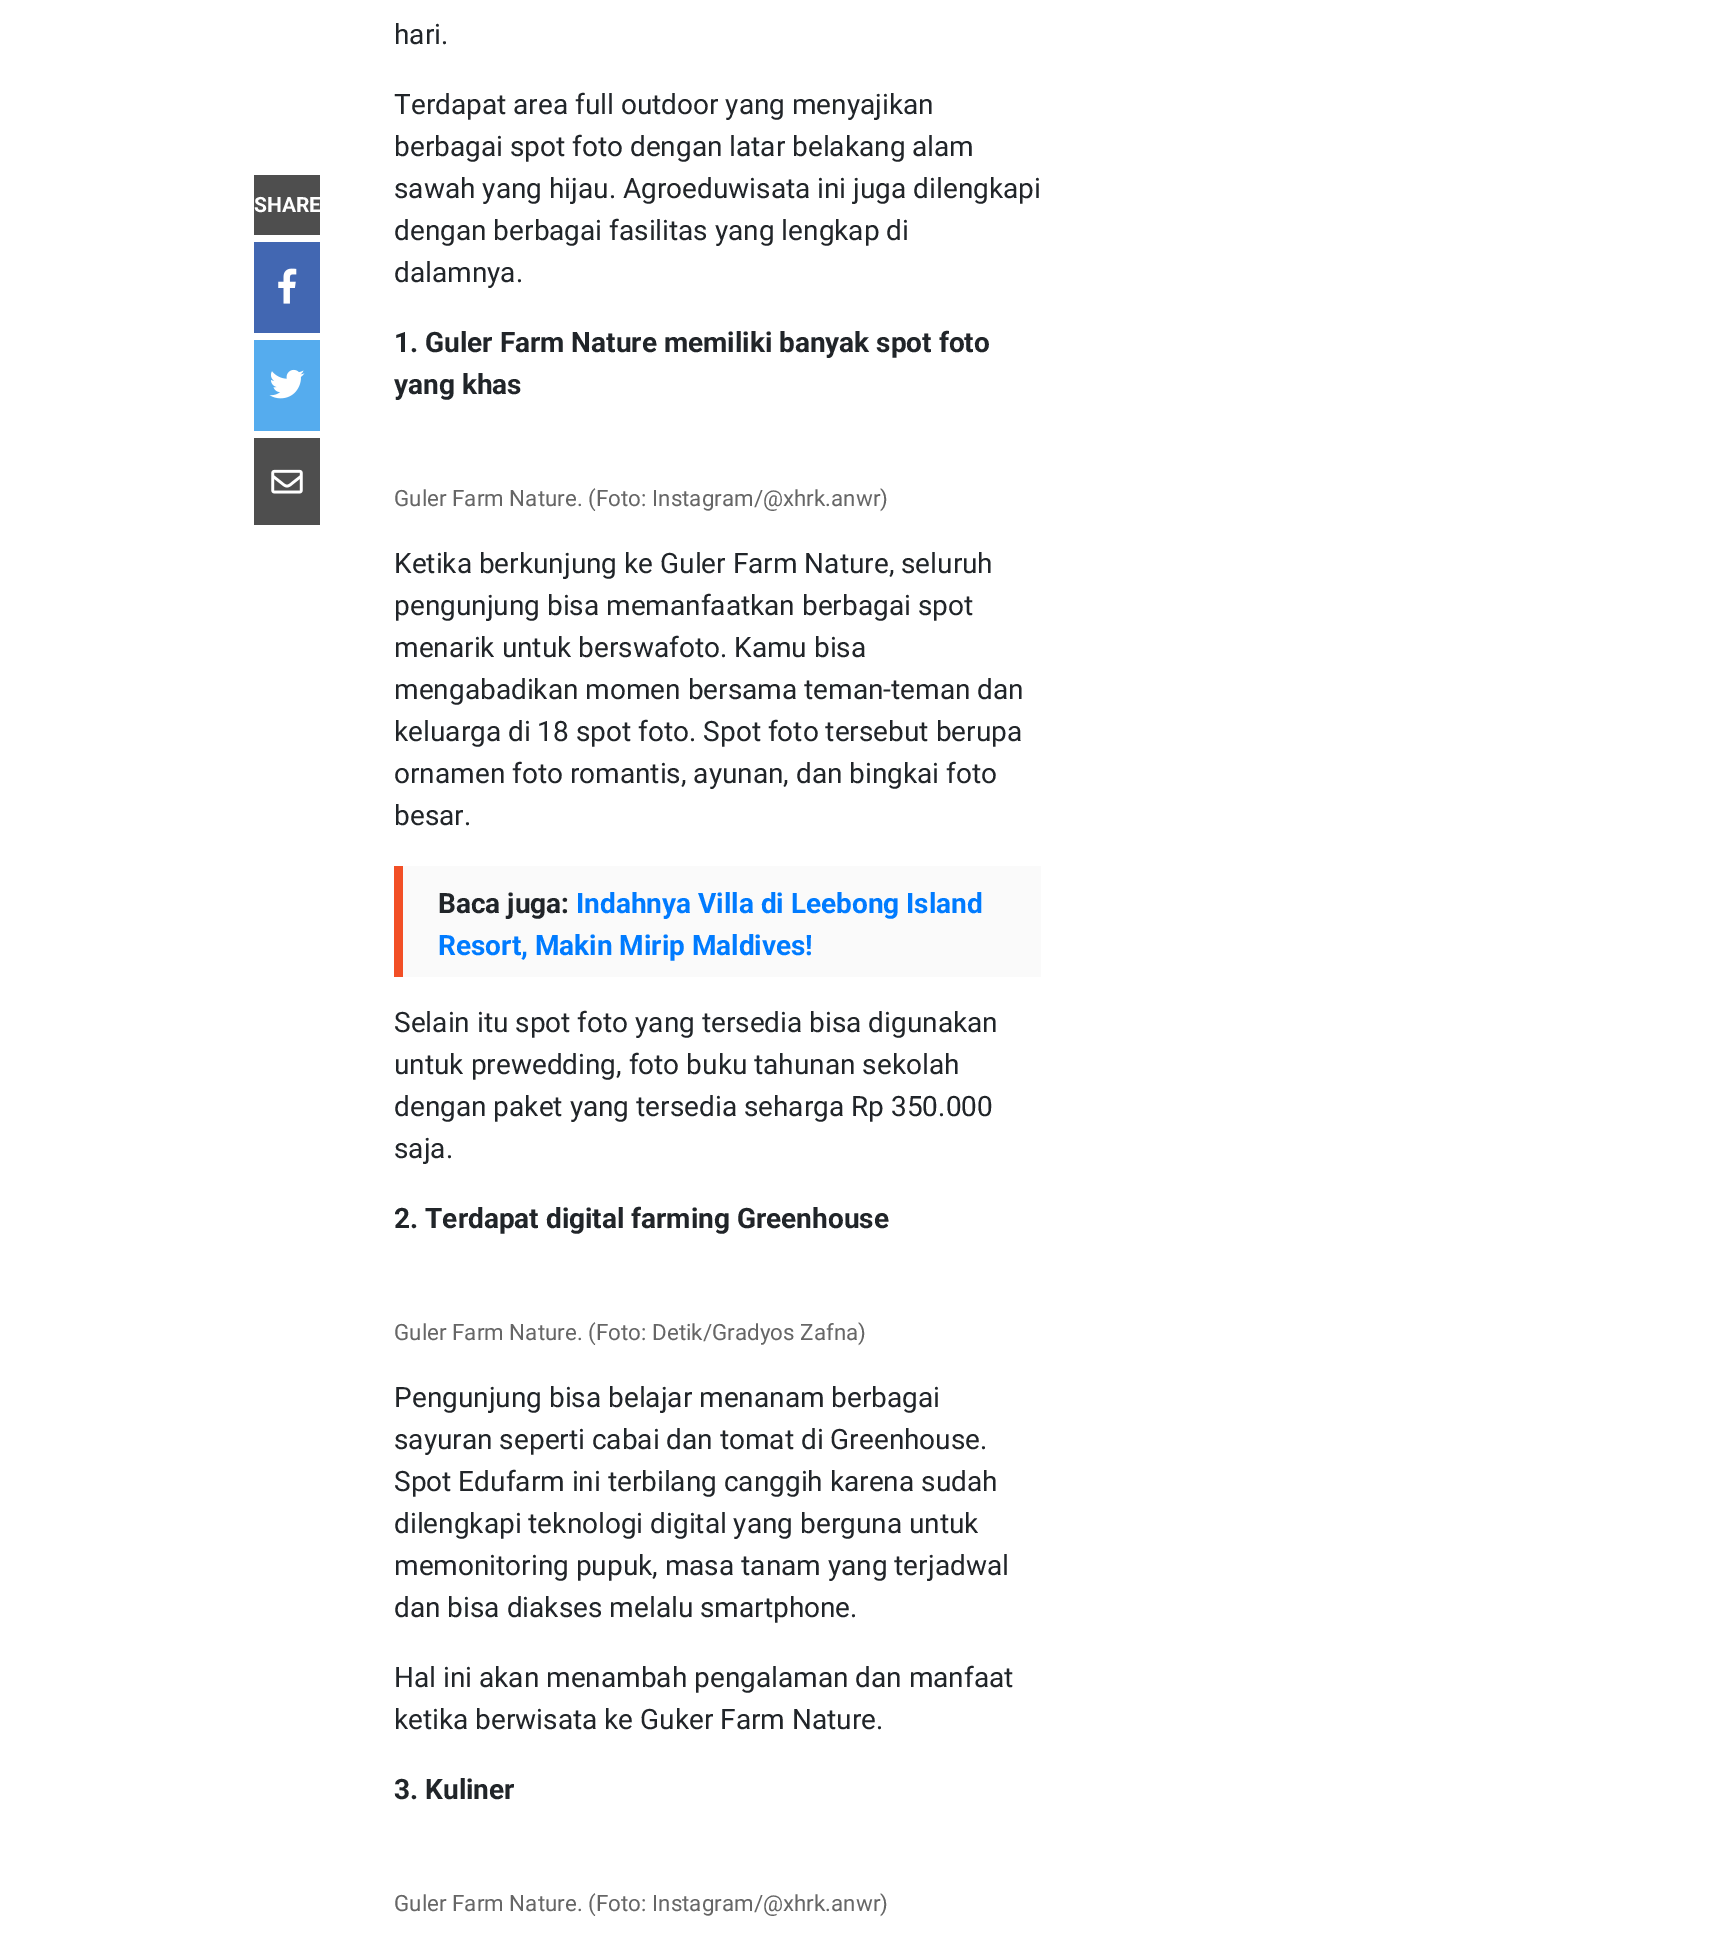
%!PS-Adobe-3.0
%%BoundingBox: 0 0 1714 1942
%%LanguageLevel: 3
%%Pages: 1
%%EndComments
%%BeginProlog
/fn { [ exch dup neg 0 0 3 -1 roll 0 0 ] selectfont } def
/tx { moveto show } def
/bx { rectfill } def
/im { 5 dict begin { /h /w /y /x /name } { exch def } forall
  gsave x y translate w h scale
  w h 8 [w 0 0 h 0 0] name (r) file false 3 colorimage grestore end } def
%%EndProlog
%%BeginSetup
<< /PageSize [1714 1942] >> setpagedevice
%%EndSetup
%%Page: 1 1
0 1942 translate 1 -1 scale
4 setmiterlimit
1 setgray
0 0 1714 1942 bx
0.306 setgray
254 175 66 60 bx
/Roboto-Bold 21 fn
1 setgray
(SHARE) 254 212 tx
0.259 0.404 0.698 setrgbcolor
254 242 66 91 bx
(image0.raw) 278 268 19 36 im
0.333 0.675 0.933 setrgbcolor
254 340 66 91 bx
(image1.raw) 269 369 36 30 im
0.306 setgray
254 438 66 87 bx
(image2.raw) 271 469 32 25 im
/Roboto-Regular 28 fn
0.129 0.145 0.161 setrgbcolor
(hari.) 394 44 tx
(Terdapat area full outdoor yang menyajikan) 394 114 tx
(berbagai spot foto dengan latar belakang alam) 394 156 tx
(sawah yang hijau. Agroeduwisata ini juga dilengkapi) 394 198 tx
(dengan berbagai fasilitas yang lengkap di) 394 240 tx
(dalamnya.) 394 282 tx
/Roboto-Bold 28 fn
(1. Guler Farm Nature memiliki banyak spot foto) 394 352 tx
(yang khas) 394 394 tx
/Roboto-Regular 22.4 fn
0.4 setgray
(Guler Farm Nature. \(Foto: Instagram/@xhrk.anwr\)) 394 506 tx
/Roboto-Regular 28 fn
0.129 0.145 0.161 setrgbcolor
(Ketika berkunjung ke Guler Farm Nature, seluruh) 394 573 tx
(pengunjung bisa memanfaatkan berbagai spot) 394 615 tx
(menarik untuk berswafoto. Kamu bisa) 394 657 tx
(mengabadikan momen bersama teman-teman dan) 394 699 tx
(keluarga di 18 spot foto. Spot foto tersebut berupa) 394 741 tx
(ornamen foto romantis, ayunan, dan bingkai foto) 394 783 tx
(besar.) 394 825 tx
0.98 setgray
403 866 638 111 bx
0.949 0.31 0.149 setrgbcolor
394 866 9 111 bx
/Roboto-Bold 28 fn
0.129 0.145 0.161 setrgbcolor
(Baca juga:) 438 913 tx
0 0.482 1 setrgbcolor
(Indahnya Villa di Leebong Island) 576 913 tx
(Resort, Makin Mirip Maldives!) 438 955 tx
/Roboto-Regular 28 fn
0.129 0.145 0.161 setrgbcolor
(Selain itu spot foto yang tersedia bisa digunakan) 394 1032 tx
(untuk prewedding, foto buku tahunan sekolah) 394 1074 tx
(dengan paket yang tersedia seharga Rp 350.000) 394 1116 tx
(saja.) 394 1158 tx
/Roboto-Bold 28 fn
(2. Terdapat digital farming Greenhouse) 394 1228 tx
/Roboto-Regular 22.4 fn
0.4 setgray
(Guler Farm Nature. \(Foto: Detik/Gradyos Zafna\)) 394 1340 tx
/Roboto-Regular 28 fn
0.129 0.145 0.161 setrgbcolor
(Pengunjung bisa belajar menanam berbagai) 394 1407 tx
(sayuran seperti cabai dan tomat di Greenhouse.) 394 1449 tx
(Spot Edufarm ini terbilang canggih karena sudah) 394 1491 tx
(dilengkapi teknologi digital yang berguna untuk) 394 1533 tx
(memonitoring pupuk, masa tanam yang terjadwal) 394 1575 tx
(dan bisa diakses melalu smartphone.) 394 1617 tx
(Hal ini akan menambah pengalaman dan manfaat) 394 1687 tx
(ketika berwisata ke Guker Farm Nature.) 394 1729 tx
/Roboto-Bold 28 fn
(3. Kuliner) 394 1799 tx
/Roboto-Regular 22.4 fn
0.4 setgray
(Guler Farm Nature. \(Foto: Instagram/@xhrk.anwr\)) 394 1911 tx
showpage
%%EOF
